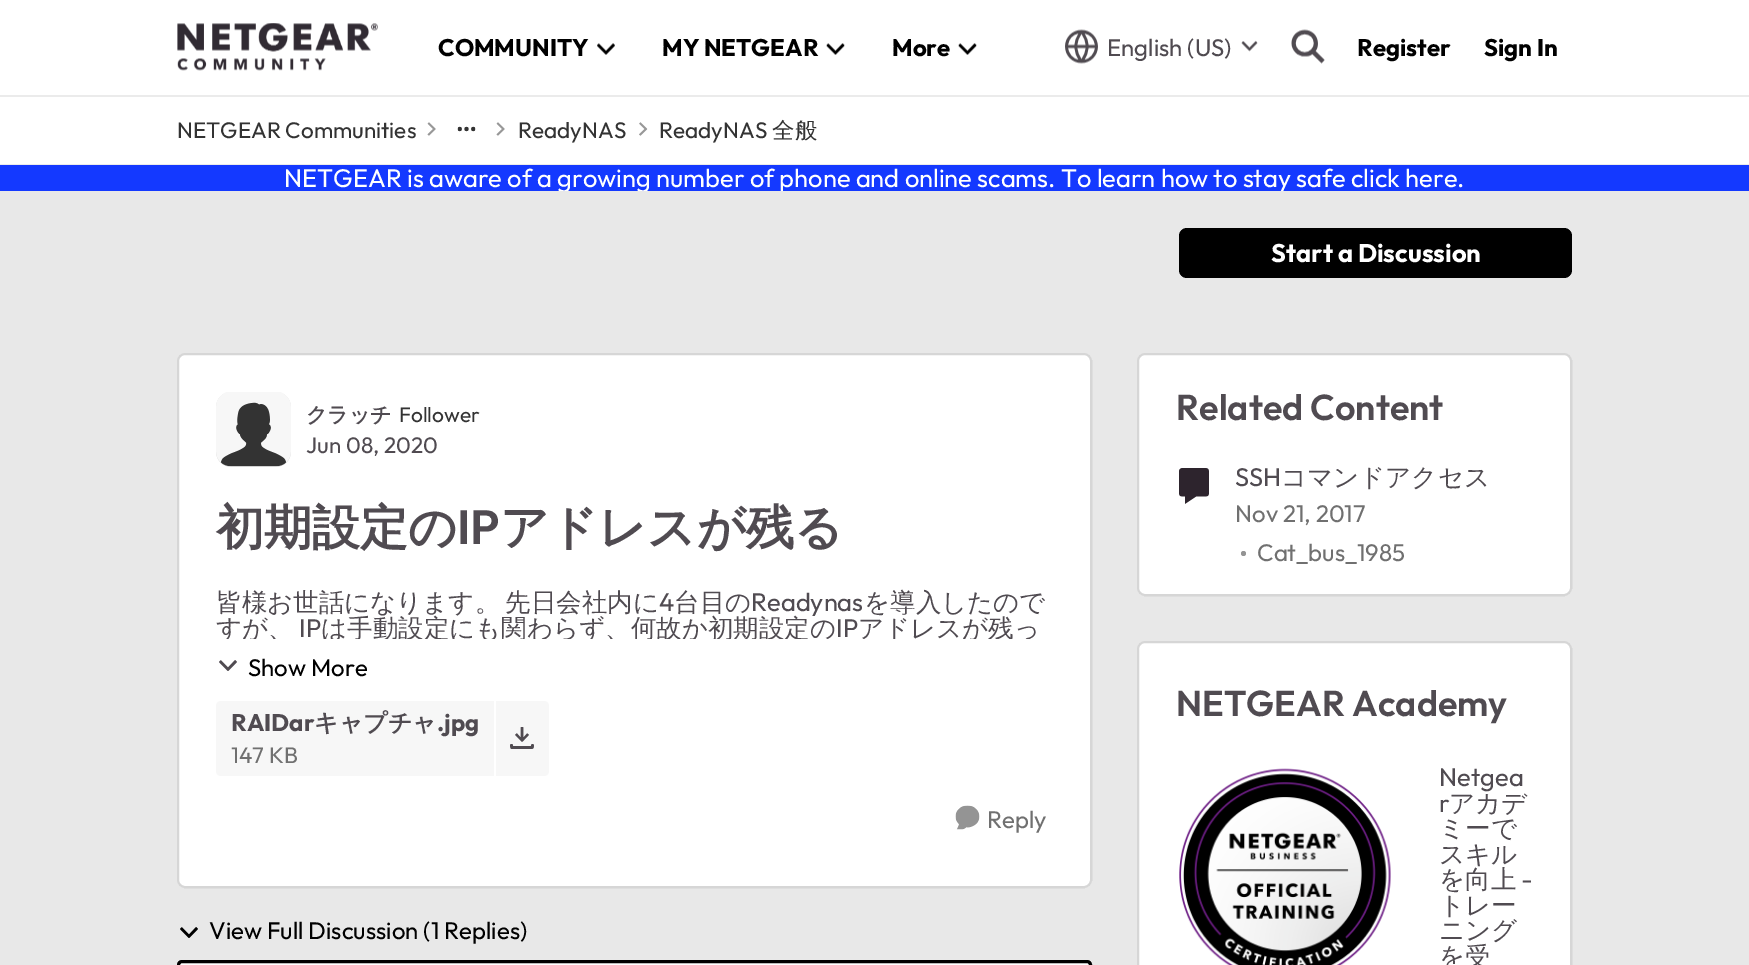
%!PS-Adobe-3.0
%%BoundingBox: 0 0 1749 965
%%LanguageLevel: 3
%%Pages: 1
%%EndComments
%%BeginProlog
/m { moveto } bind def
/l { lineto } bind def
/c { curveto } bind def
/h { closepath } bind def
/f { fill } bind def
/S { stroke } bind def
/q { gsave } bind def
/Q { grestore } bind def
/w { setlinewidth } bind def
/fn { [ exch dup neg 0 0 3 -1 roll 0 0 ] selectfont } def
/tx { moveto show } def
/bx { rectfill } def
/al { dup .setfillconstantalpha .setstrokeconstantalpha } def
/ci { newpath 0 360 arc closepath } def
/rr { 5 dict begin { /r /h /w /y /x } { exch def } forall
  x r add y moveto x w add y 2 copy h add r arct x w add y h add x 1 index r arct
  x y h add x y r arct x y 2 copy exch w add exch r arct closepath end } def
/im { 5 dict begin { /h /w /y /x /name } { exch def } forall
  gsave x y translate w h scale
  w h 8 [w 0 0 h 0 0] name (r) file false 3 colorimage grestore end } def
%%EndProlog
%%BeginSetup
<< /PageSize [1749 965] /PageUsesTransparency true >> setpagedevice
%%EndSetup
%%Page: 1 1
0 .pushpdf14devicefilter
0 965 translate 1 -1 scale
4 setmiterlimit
1 setgray
0 0 1749 965 bx
0.08 al
0 setgray
0 95 1749 2 bx
1 al
(image0.raw) 177 23 201 48 im
/Outfit-Bold 24 fn
(COMMUNITY) 438 56 tx
(image1.raw) 597 43 18 12 im
(MY NETGEAR) 662 56 tx
(image2.raw) 826 43 19 12 im
(More) 892 56 tx
(image2.raw) 958 43 19 12 im
(image3.raw) 1065 29 33 35 im
/Outfit-Regular 24 fn
0.314 0.294 0.318 setrgbcolor
(English \(US\)) 1107 56 tx
(image4.raw) 1241 40 17 12 im
(image5.raw) 1291 29 34 35 im
/Outfit-Bold 24 fn
0 setgray
(Register) 1357 56 tx
(Sign In) 1484 56 tx
0.922 setgray
0 164 1749 1 bx
/Outfit-Regular 22.5 fn
0.2 setgray
(NETGEAR Communities) 177 138 tx
(image6.raw) 427 122 9 14 im
(image7.raw) 457 126 19 6 im
(image6.raw) 496 122 9 14 im
(ReadyNAS) 518 138 tx
(image8.raw) 639 122 9 14 im
(ReadyNAS) 659 138 tx
/WenQuanYiZenHei-Medium 22.5 fn
(全般) 772 138 tx
0.078 0.224 1 setrgbcolor
0 165 1749 26 bx
/Outfit-Regular 25.5 fn
1 setgray
(NETGEAR is aware of a growing number of phone and online scams. To learn how to stay safe click here.) 284 187 tx
0.91 setgray
0 191 1749 774 bx
0 setgray
1179 228 393 50 8 rr f
/Outfit-Bold 25.5 fn
1 setgray
(Start a Discussion) 1271 262 tx
177 353 915 535 8 rr f
0.16 al
0 setgray
2 w
178 354 913 533 7 rr S
1 al
0.851 setgray
216 392 75 75 15 rr f
(image9.raw) 216 392 75 75 im
/WenQuanYiZenHei-Bold 21 fn
0.314 0.294 0.318 setrgbcolor
(クラッチ) 306 422 tx
/Outfit-Regular 21 fn
0.2 setgray
(Follower) 399 422 tx
/Outfit-Regular 22.5 fn
0.314 0.294 0.318 setrgbcolor
(Jun 08, 2020) 306 453 tx
/WenQuanYiZenHei-Bold 48 fn
(初期設定の) 216 544 tx
/Outfit-SemiBold 48 fn
(IP) 457 544 tx
/WenQuanYiZenHei-Bold 48 fn
(アドレスが残る) 500 544 tx
/WenQuanYiZenHei-Medium 25.5 fn
(皆様お世話になります。) 216 611 tx
(先日会社内に) 505 611 tx
/Outfit-Regular 25.5 fn
(4) 659 611 tx
/WenQuanYiZenHei-Medium 25.5 fn
(台目の) 674 611 tx
/Outfit-Regular 25.5 fn
(Readynas) 751 611 tx
/WenQuanYiZenHei-Medium 25.5 fn
(を導入したので) 864 611 tx
q
216 588 837 51 rectclip
(すが、) 216 637 tx
Q
/Outfit-Regular 25.5 fn
(IP) 299 637 tx
q
216 588 837 51 rectclip
/WenQuanYiZenHei-Medium 25.5 fn
(は手動設定にも関わらず、何故か初期設定の) 321 637 tx
Q
(IP) 836 637 tx
q
216 588 837 51 rectclip
/WenQuanYiZenHei-Medium 25.5 fn
(アドレスが残っ) 858 637 tx
Q
(image10.raw) 219 660 18 11 im
/Outfit-Regular 24 fn
0 setgray
(Show More) 248 676 tx
0.969 setgray
221 701 m 494 701 l 494 776 l 221 776 l 218 776 216 774 216 771 c 216 706 l 216 703 218 701 221 701 c h f
/Outfit-Bold 24 fn
0.314 0.294 0.318 setrgbcolor
(RAIDar) 231 731 tx
/WenQuanYiZenHei-Bold 24 fn
(キャプチャ) 314 731 tx
/Outfit-Bold 24 fn
(.jpg) 437 731 tx
/Outfit-Regular 22.5 fn
0.439 setgray
(147 KB) 231 763 tx
0.969 setgray
494 701 m 544 701 l 547 701 549 703 549 706 c 549 771 l 549 774 547 776 544 776 c 494 776 l h f
1 setgray
494 701 2 75 bx
(image11.raw) 510 727 24 22 im
(image12.raw) 955 805 25 25 im
/Outfit-Regular 24 fn
0.439 setgray
(Reply) 987 828 tx
(image13.raw) 180 927 18 11 im
0 setgray
(View Full Discussion \(1 Replies\)) 209 939 tx
1 setgray
178.5 961.5 912 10 3.5 rr q f Q
0 setgray
3 w
S
1 setgray
1137 353 435 243 8 rr f
0.16 al
0 setgray
2 w
1138 354 433 241 7 rr S
/Outfit-SemiBold 36 fn
1 al
0.314 0.294 0.318 setrgbcolor
(Related Content) 1176 420 tx
(image14.raw) 1179 468 30 36 im
/Outfit-Regular 25.5 fn
(SSH) 1235 486 tx
/WenQuanYiZenHei-Medium 25.5 fn
(コマンドアクセス) 1281 486 tx
/Outfit-Regular 24 fn
0.439 setgray
(Nov 21, 2017) 1235 522 tx
0.58 setgray
1243.5 553.5 2.5 ci f
0.439 setgray
(Cat_bus_1985) 1257 561 tx
1 setgray
1137 641 435 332 8 rr f
0.16 al
0 setgray
1138 642 433 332 7 rr S
/Outfit-SemiBold 36 fn
1 al
0.314 0.294 0.318 setrgbcolor
(NETGEAR Academy) 1176 716 tx
(image15.raw) 1179 768 212 197 im
/Outfit-Regular 25.5 fn
(Netgea) 1439 786 tx
(r) 1439 812 tx
/WenQuanYiZenHei-Medium 25.5 fn
(アカデ) 1449 812 tx
(ミーで) 1439 837 tx
(スキル) 1439 863 tx
(を向上) 1439 888 tx
/Outfit-Regular 25.5 fn
(-) 1521 888 tx
/WenQuanYiZenHei-Medium 25.5 fn
(トレー) 1439 914 tx
(ニング) 1439 939 tx
(を受) 1439 965 tx
.poppdf14devicefilter showpage
%%EOF
